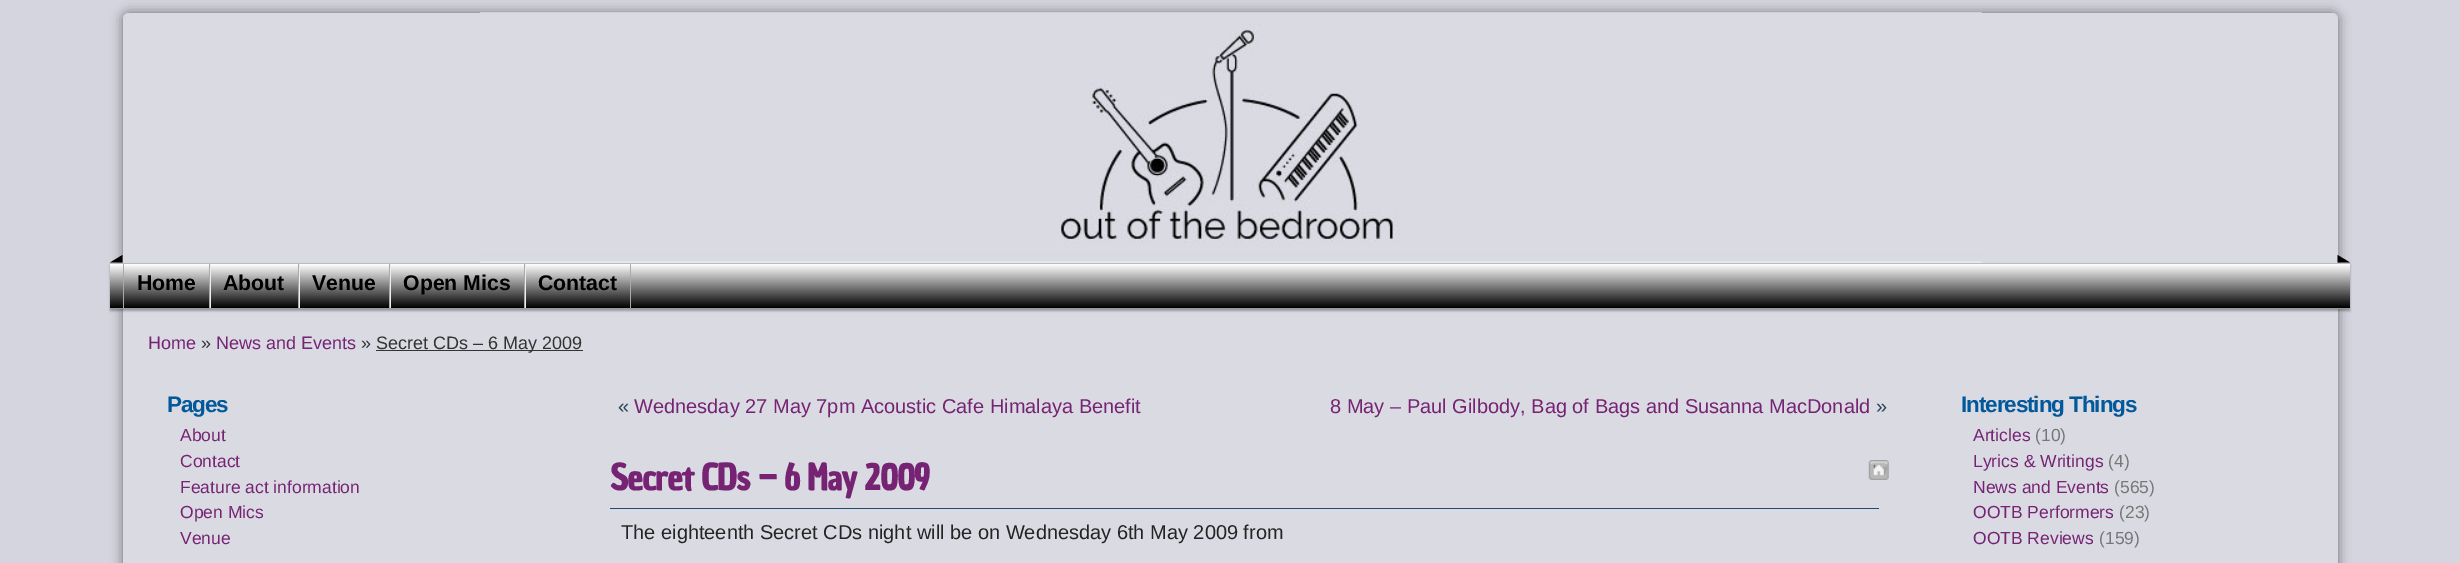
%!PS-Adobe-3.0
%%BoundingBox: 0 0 2460 563
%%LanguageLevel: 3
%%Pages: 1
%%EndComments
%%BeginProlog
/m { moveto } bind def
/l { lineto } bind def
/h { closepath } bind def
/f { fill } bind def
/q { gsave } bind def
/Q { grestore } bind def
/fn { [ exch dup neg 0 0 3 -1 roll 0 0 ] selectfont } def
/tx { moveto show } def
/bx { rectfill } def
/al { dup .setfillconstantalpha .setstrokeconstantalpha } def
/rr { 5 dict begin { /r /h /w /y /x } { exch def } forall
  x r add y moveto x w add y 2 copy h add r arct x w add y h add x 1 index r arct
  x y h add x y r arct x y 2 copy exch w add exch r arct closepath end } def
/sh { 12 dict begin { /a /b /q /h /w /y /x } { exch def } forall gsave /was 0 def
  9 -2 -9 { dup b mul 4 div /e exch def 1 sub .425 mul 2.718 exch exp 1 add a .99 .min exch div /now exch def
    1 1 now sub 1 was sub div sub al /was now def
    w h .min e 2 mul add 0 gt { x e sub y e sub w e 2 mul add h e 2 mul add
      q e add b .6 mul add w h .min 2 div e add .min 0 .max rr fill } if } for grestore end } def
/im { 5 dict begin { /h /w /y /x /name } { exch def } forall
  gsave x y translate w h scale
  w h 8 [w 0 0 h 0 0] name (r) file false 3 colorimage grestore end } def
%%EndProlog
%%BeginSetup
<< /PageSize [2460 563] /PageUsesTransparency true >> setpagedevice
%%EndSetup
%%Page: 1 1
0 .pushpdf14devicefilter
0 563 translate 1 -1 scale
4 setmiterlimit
0.835 0.835 0.878 setrgbcolor
0 0 2460 563 bx
0 setgray
123 13 2215 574 6 6 0.5 sh
0.855 0.855 0.89 setrgbcolor
123 13 2215 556 6 rr f
0 setgray
110 265 2240 46 0 1 0.3 sh
(image0.raw) 480 12 1502 251 im
(image1.raw) 480 12 1502 251 im
q 110 264 m 2350 264 l 2350 308 l 110 308 l h clip newpath
<< /ShadingType 2 /ColorSpace /DeviceRGB /Coords [1230 264 1230 308] /Extend [true true] /Function << /FunctionType 2 /Domain [0 1] /C0 [1 1 1] /C1 [0 0 0] /N 1 >> >> shfill Q
0.733 setgray
110 263 2240 1 bx
0.6 setgray
110 308 2240 1 bx
0 setgray
122.5 255 m 122.5 262.5 l 110 262.5 l h f
2337.5 262.5 m 2337.5 255 l 2350 262.5 l h f
0.667 setgray
209 264 1 44 bx
123 264 1 44 bx
/LiberationSans-Bold 21.25 fn
0 setgray
(Home) 137 290 tx
0.667 setgray
298 264 1 44 bx
0.933 setgray
210 264 1 44 bx
0 setgray
(About) 223 290 tx
0.667 setgray
389 264 1 44 bx
0.933 setgray
299 264 1 44 bx
0 setgray
(Venue) 312 290 tx
0.667 setgray
524 264 1 44 bx
0.933 setgray
390 264 1 44 bx
0 setgray
(Open Mics) 403 290 tx
0.667 setgray
630 264 1 44 bx
0.933 setgray
525 264 1 44 bx
0 setgray
(Contact) 538 290 tx
/LiberationSans-Regular 18 fn
0.459 0.137 0.447 setrgbcolor
(Home) 148 349 tx
0.2 setgray
(») 201 349 tx
0.459 0.137 0.447 setrgbcolor
(News and Events) 216 349 tx
0.2 setgray
(») 361 349 tx
376 350 207 1 bx
(Secret CDs – 6 May 2009) 376 349 tx
/LiberationSans-Bold 22.5 fn
0.012 0.345 0.6 setrgbcolor
167 412 m -1.1 0 (Pages) ashow
/LiberationSans-Regular 17.5 fn
0.459 0.137 0.447 setrgbcolor
(About) 180 441 tx
(Contact) 180 467 tx
(Feature act information) 180 493 tx
(Open Mics) 180 518 tx
(Venue) 180 544 tx
/LiberationSans-Regular 20 fn
0.173 0.263 0.325 setrgbcolor
(«) 618 413 tx
0.459 0.137 0.447 setrgbcolor
(Wednesday 27 May 7pm Acoustic Cafe Himalaya Benefit) 634 413 tx
(8 May – Paul Gilbody, Bag of Bags and Susanna MacDonald) 1330 413 tx
0.173 0.263 0.325 setrgbcolor
(») 1876 413 tx
/ChauPhilomeneOne-Bold 35 fn
0.459 0.137 0.447 setrgbcolor
610 490 m -1.1 0 (Secret CDs – 6 May 2009) ashow
(image2.raw) 1868 460 21 20 im
0.098 0.302 0.459 setrgbcolor
610 508 1269 1 bx
/LiberationSans-Regular 20 fn
0.141 setgray
(The eighteenth Secret CDs night will be on Wednesday 6th May 2009 from) 621 539 tx
/LiberationSans-Bold 22.5 fn
0.012 0.345 0.6 setrgbcolor
1961 412 m -1.1 0 (Interesting Things) ashow
/LiberationSans-Regular 17.5 fn
0.459 0.137 0.447 setrgbcolor
(Articles) 1973 441 tx
0.467 setgray
(\(10\)) 2035 441 tx
0.459 0.137 0.447 setrgbcolor
(Lyrics & Writings) 1973 467 tx
0.467 setgray
(\(4\)) 2108 467 tx
0.459 0.137 0.447 setrgbcolor
(News and Events) 1973 493 tx
0.467 setgray
(\(565\)) 2114 493 tx
0.459 0.137 0.447 setrgbcolor
(OOTB Performers) 1973 518 tx
0.467 setgray
(\(23\)) 2119 518 tx
0.459 0.137 0.447 setrgbcolor
(OOTB Reviews) 1973 544 tx
0.467 setgray
(\(159\)) 2099 544 tx
.poppdf14devicefilter showpage
%%EOF
